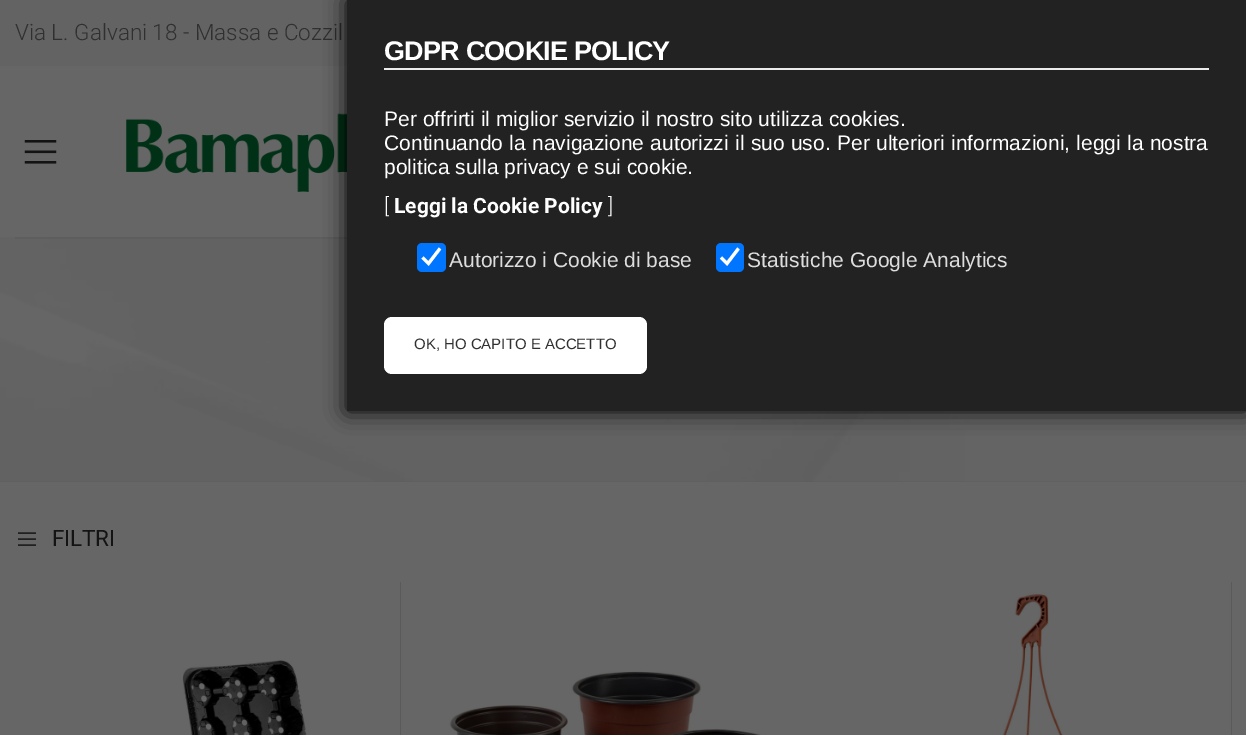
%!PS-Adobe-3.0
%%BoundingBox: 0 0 1246 735
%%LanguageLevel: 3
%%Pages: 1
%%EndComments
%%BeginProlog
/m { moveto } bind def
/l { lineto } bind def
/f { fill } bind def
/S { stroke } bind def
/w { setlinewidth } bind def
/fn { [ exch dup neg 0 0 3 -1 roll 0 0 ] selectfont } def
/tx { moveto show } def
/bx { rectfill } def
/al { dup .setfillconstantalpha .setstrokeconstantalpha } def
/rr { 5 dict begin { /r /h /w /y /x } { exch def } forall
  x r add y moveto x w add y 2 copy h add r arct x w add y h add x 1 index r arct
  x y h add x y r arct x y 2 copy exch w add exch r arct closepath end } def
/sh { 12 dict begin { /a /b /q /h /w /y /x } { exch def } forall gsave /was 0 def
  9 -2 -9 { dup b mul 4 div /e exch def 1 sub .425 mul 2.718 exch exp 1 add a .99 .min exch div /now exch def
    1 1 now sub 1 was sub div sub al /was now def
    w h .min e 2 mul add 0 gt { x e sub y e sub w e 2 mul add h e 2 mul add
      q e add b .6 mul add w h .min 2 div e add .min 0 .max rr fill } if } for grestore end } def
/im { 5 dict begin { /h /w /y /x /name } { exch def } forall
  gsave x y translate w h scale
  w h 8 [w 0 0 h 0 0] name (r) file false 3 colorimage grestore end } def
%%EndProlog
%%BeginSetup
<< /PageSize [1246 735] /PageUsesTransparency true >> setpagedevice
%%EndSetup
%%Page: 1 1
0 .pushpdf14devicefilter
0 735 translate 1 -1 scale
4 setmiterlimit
0.4 setgray
0 0 1246 735 bx
0.388 setgray
0 0 347 66 bx
/Roboto-Light 22.5 fn
0.188 setgray
(Via L. Galvani 18 - Massa e Cozzil) 15 40 tx
(image0.raw) 24 140 33 24 im
(image1.raw) 126 113 221 79 im
0.369 setgray
0 481 1246 1 bx
(image2.raw) 0 237 1246 245 im
15 237 332 2 bx
(image3.raw) 18 532 18 14 im
/Roboto-Regular 22.5 fn
0.078 setgray
52 546 m -0.25 0 (FILTRI) ashow
0.337 setgray
400 582 1 153 bx
(image4.raw) 15 582 386 153 im
(image5.raw) 431 582 385 153 im
1231 582 1 153 bx
(image6.raw) 846 582 386 153 im
0 setgray
347 0 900 411 0 11 1 sh
0.133 setgray
347 0 899 411 bx
/LiberationSans-Bold 27 fn
1 setgray
384 60 m -0.8 0 (GDPR COOKIE POLICY) ashow
0.922 setgray
384 68 825 2 bx
/LiberationSans-Regular 21 fn
1 setgray
(Per offrirti il miglior servizio il nostro sito utilizza cookies.) 384 126 tx
384 150 m 0.5 0 32 (Continuando la navigazione autorizzi il suo uso. Per ulteriori informazioni, leggi la nostra) widthshow
(politica sulla privacy e sui cookie.) 384 174 tx
/Roboto-Light 21 fn
([) 384 213 tx
/Roboto-Bold 21 fn
(Leggi la Cookie Policy) 394 213 tx
/Roboto-Light 21 fn
(]) 608 213 tx
0 0.459 1 setrgbcolor
417 243 29 29 5 rr f
1 setgray
3.1 w
422.5 257.5 m 428.5 263.5 l 440 248.5 l S
/LiberationSans-Regular 21 fn
0.867 setgray
(Autorizzo i Cookie di base) 449 267 tx
0 0.459 1 setrgbcolor
716 243 28 29 5 rr f
1 setgray
721 257.5 m 727 263.5 l 738.5 248.5 l S
0.867 setgray
(Statistiche Google Analytics) 747 267 tx
1 setgray
384 317 263 57 8 rr f
/LiberationSans-Regular 15 fn
0.188 setgray
(OK, HO CAPITO E ACCETTO) 414 349 tx
.poppdf14devicefilter showpage
%%EOF
